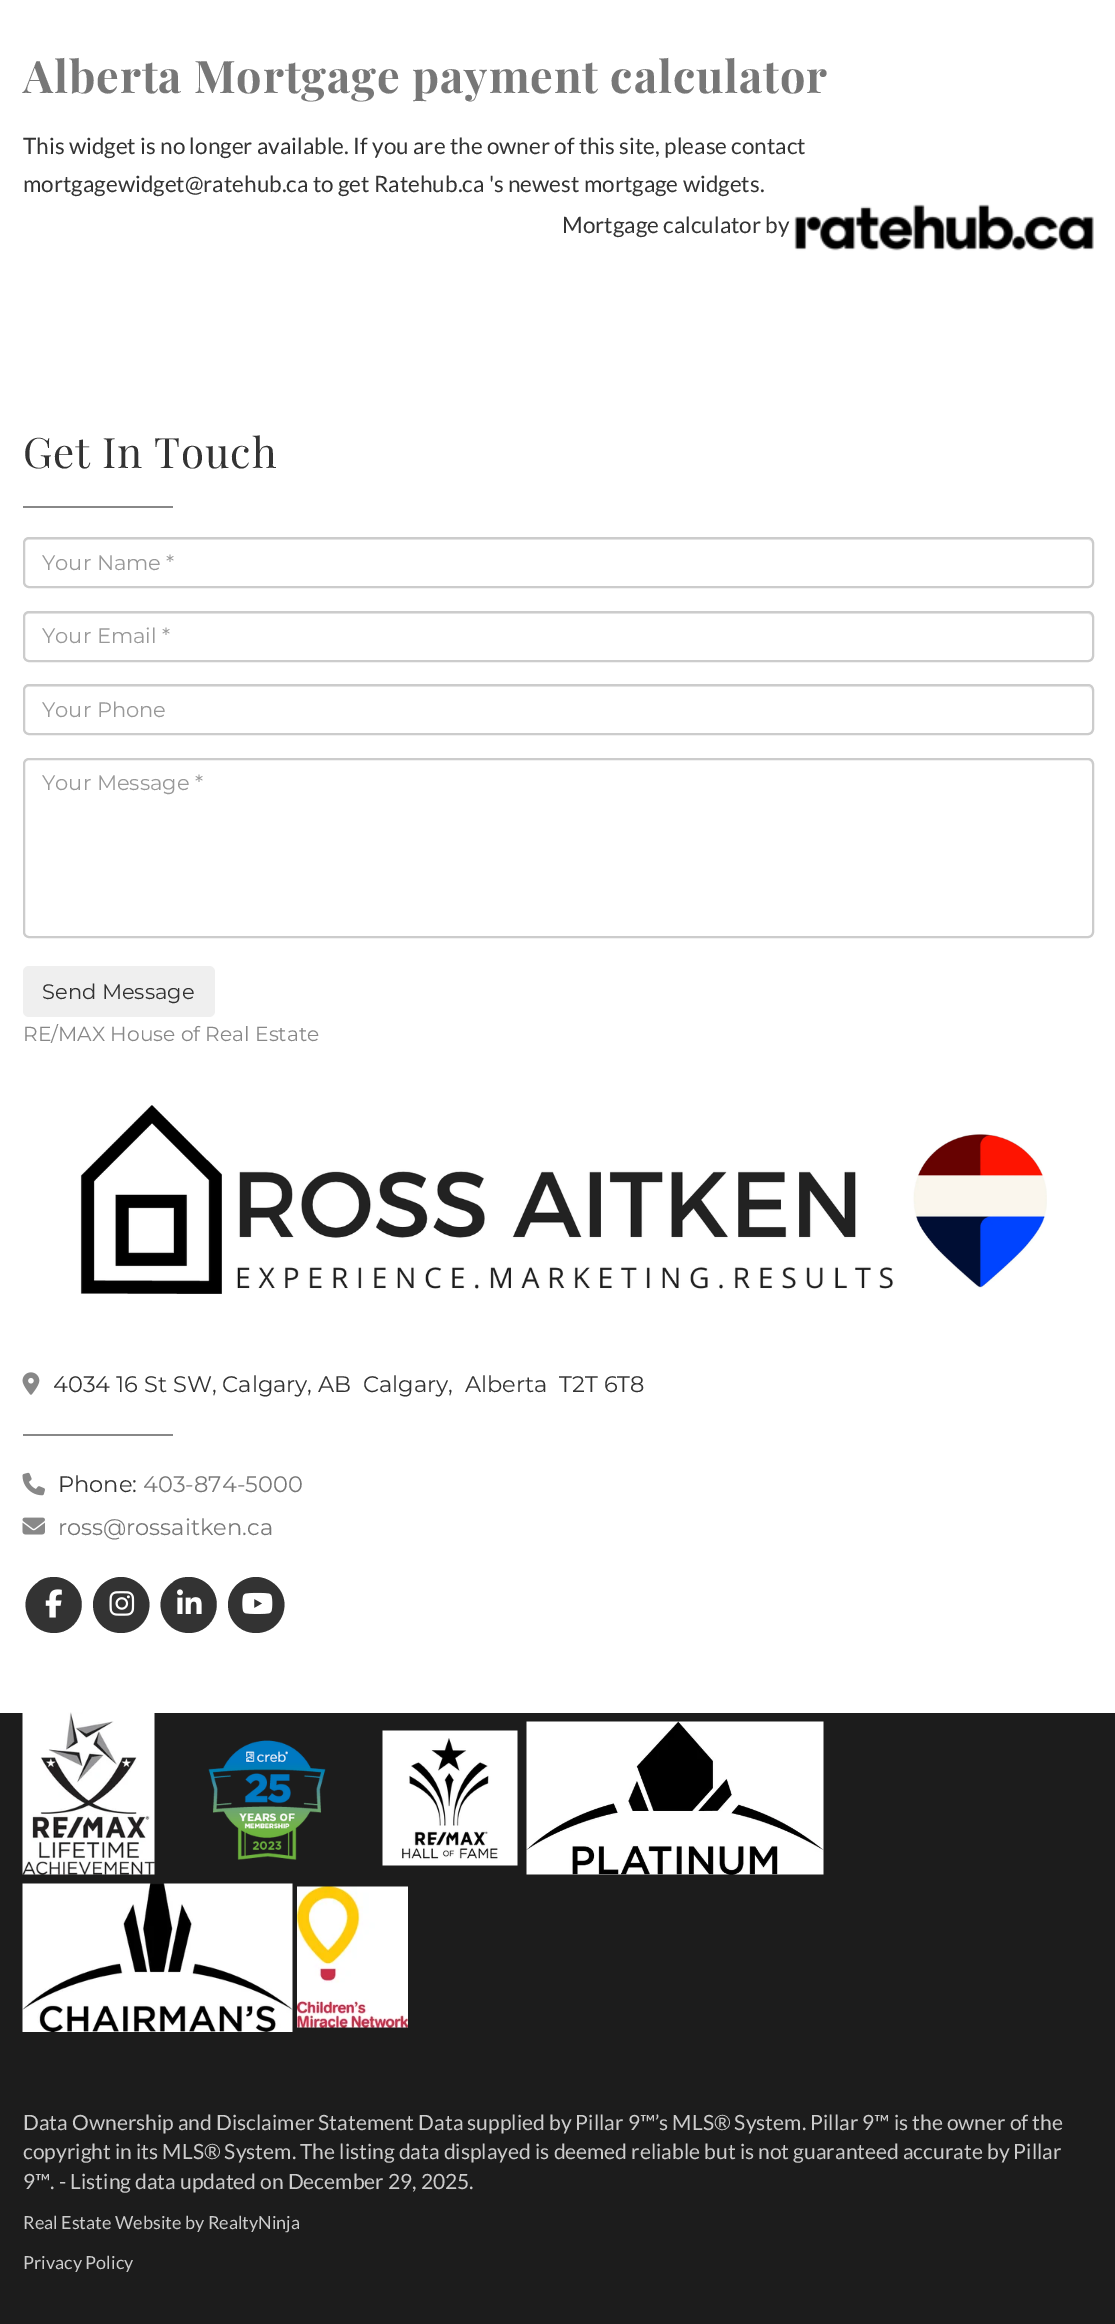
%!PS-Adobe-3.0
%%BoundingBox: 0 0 1115 2324
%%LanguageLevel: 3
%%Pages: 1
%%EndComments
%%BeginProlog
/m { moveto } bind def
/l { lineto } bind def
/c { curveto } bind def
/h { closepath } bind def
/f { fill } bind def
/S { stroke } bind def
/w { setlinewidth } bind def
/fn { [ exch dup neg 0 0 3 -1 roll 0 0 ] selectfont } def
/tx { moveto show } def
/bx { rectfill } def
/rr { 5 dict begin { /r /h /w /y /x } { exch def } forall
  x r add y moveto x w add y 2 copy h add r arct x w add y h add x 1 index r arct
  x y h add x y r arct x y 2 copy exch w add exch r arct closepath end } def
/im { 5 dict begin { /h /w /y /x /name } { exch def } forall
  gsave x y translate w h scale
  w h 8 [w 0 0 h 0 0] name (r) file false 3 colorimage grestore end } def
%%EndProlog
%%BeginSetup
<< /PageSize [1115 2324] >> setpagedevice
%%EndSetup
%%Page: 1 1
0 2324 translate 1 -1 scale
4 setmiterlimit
1 setgray
0 0 1115 2324 bx
/PlayfairDisplay-Bold 45 fn
0.467 setgray
23 93 m 0.9 0 (Alberta Mortgage payment calculator) ashow
/Lato-Regular 22.5 fn
0.2 setgray
(This widget is no longer available. If you are the owner of this site, please contact) 23 154 tx
(mortgagewidget@ratehub.ca to get Ratehub.ca 's newest mortgage widgets.) 23 192 tx
(Mortgage calculator by) 562 233 tx
(image0.raw) 794 204 300 47 im
/PlayfairDisplay-Regular 42 fn
23 468 m 0.8 0 (Get In Touch) ashow
0.533 setgray
23 506 150 2 bx
0.925 setgray
28 540 m 1088 540 l 1090 540 1092 542 1092 544 c 1092 541 1090 539 1087 539 c 29 539 l 26 539 24 541 24 544 c 24 542 26 540 28 540 c h f
0.8 setgray
2 w
24 538 1069 49 5 rr S
/Montserrat-Regular 21 fn
0.6 setgray
(Your Name *) 42 570 tx
0.925 setgray
28 614 m 1088 614 l 1090 614 1092 616 1092 618 c 1092 615 1090 612 1087 612 c 29 612 l 26 612 24 615 24 618 c 24 616 26 614 28 614 c h f
0.8 setgray
24 612 1069 49 5 rr S
0.6 setgray
(Your Email *) 42 643 tx
0.925 setgray
28 687 m 1088 687 l 1090 687 1092 689 1092 692 c 1092 689 1090 686 1087 686 c 29 686 l 26 686 24 689 24 692 c 24 689 26 687 28 687 c h f
0.8 setgray
24 685 1069 49 5 rr S
0.6 setgray
(Your Phone) 42 717 tx
0.925 setgray
28 760 m 1088 760 l 1090 760 1092 763 1092 765 c 1092 762 1090 759 1087 759 c 29 759 l 26 759 24 762 24 765 c 24 763 26 760 28 760 c h f
0.8 setgray
24 759 1069 178 5 rr S
0.6 setgray
(Your Message *) 42 790 tx
0.937 setgray
23 966 192 51 6 rr f
0.2 setgray
(Send Message) 42 999 tx
/Montserrat-Regular 20.25 fn
0.533 setgray
(RE/MAX House of Real Estate) 23 1041 tx
(image1.raw) 80 1105 967 189 im
(image2.raw) 22 1372 18 23 im
/Montserrat-Regular 22.5 fn
0.2 setgray
(4034 16 St SW, Calgary, AB) 53 1392 tx
(Calgary,) 363 1392 tx
(Alberta) 465 1392 tx
(T2T 6T8) 559 1392 tx
0.533 setgray
23 1434 150 2 bx
(image3.raw) 22 1472 23 24 im
0.2 setgray
(Phone:) 58 1492 tx
0.467 setgray
(403-874-5000) 143 1492 tx
(image4.raw) 22 1517 23 18 im
(ross@rossaitken.ca) 58 1535 tx
0.2 setgray
54 1633 m 80 1633 92 1599 71 1583 c 66 1579 60 1577 54 1577 c 47 1577 41 1579 37 1583 c 15 1599 27 1633 54 1633 c h f
(image5.raw) 45 1589 17 29 im
121 1633 m 148 1633 160 1599 138 1583 c 133 1579 127 1577 121 1577 c 115 1577 109 1579 104 1583 c 83 1599 94 1633 121 1633 c h f
(image6.raw) 109 1591 26 25 im
189 1633 m 215 1633 227 1599 206 1583 c 201 1579 195 1577 189 1577 c 182 1577 176 1579 172 1583 c 150 1599 162 1633 189 1633 c h f
(image7.raw) 177 1589 25 25 im
256 1633 m 283 1633 295 1599 273 1583 c 268 1579 262 1577 256 1577 c 250 1577 244 1579 239 1583 c 218 1599 229 1633 256 1633 c h f
(image8.raw) 242 1592 31 22 im
0.11 setgray
0 1713 1115 611 bx
(image9.raw) 22 1712 133 163 im
(image10.raw) 208 1740 118 120 im
(image11.raw) 382 1730 136 136 im
(image12.raw) 526 1721 298 154 im
(image13.raw) 22 1883 271 149 im
(image14.raw) 297 1886 111 142 im
/Lato-Regular 21 fn
0.8 setgray
(Data Ownership and Disclaimer Statement Data supplied by Pillar 9™’s MLS® System. Pillar 9™ is the owner of the) 23 2130 tx
(copyright in its MLS® System. The listing data displayed is deemed reliable but is not guaranteed accurate by Pillar) 23 2159 tx
(9™. - Listing data updated on December 29, 2025.) 23 2189 tx
/Lato-Regular 18 fn
(Real Estate Website by RealtyNinja) 23 2229 tx
(Privacy Policy) 23 2269 tx
showpage
%%EOF
